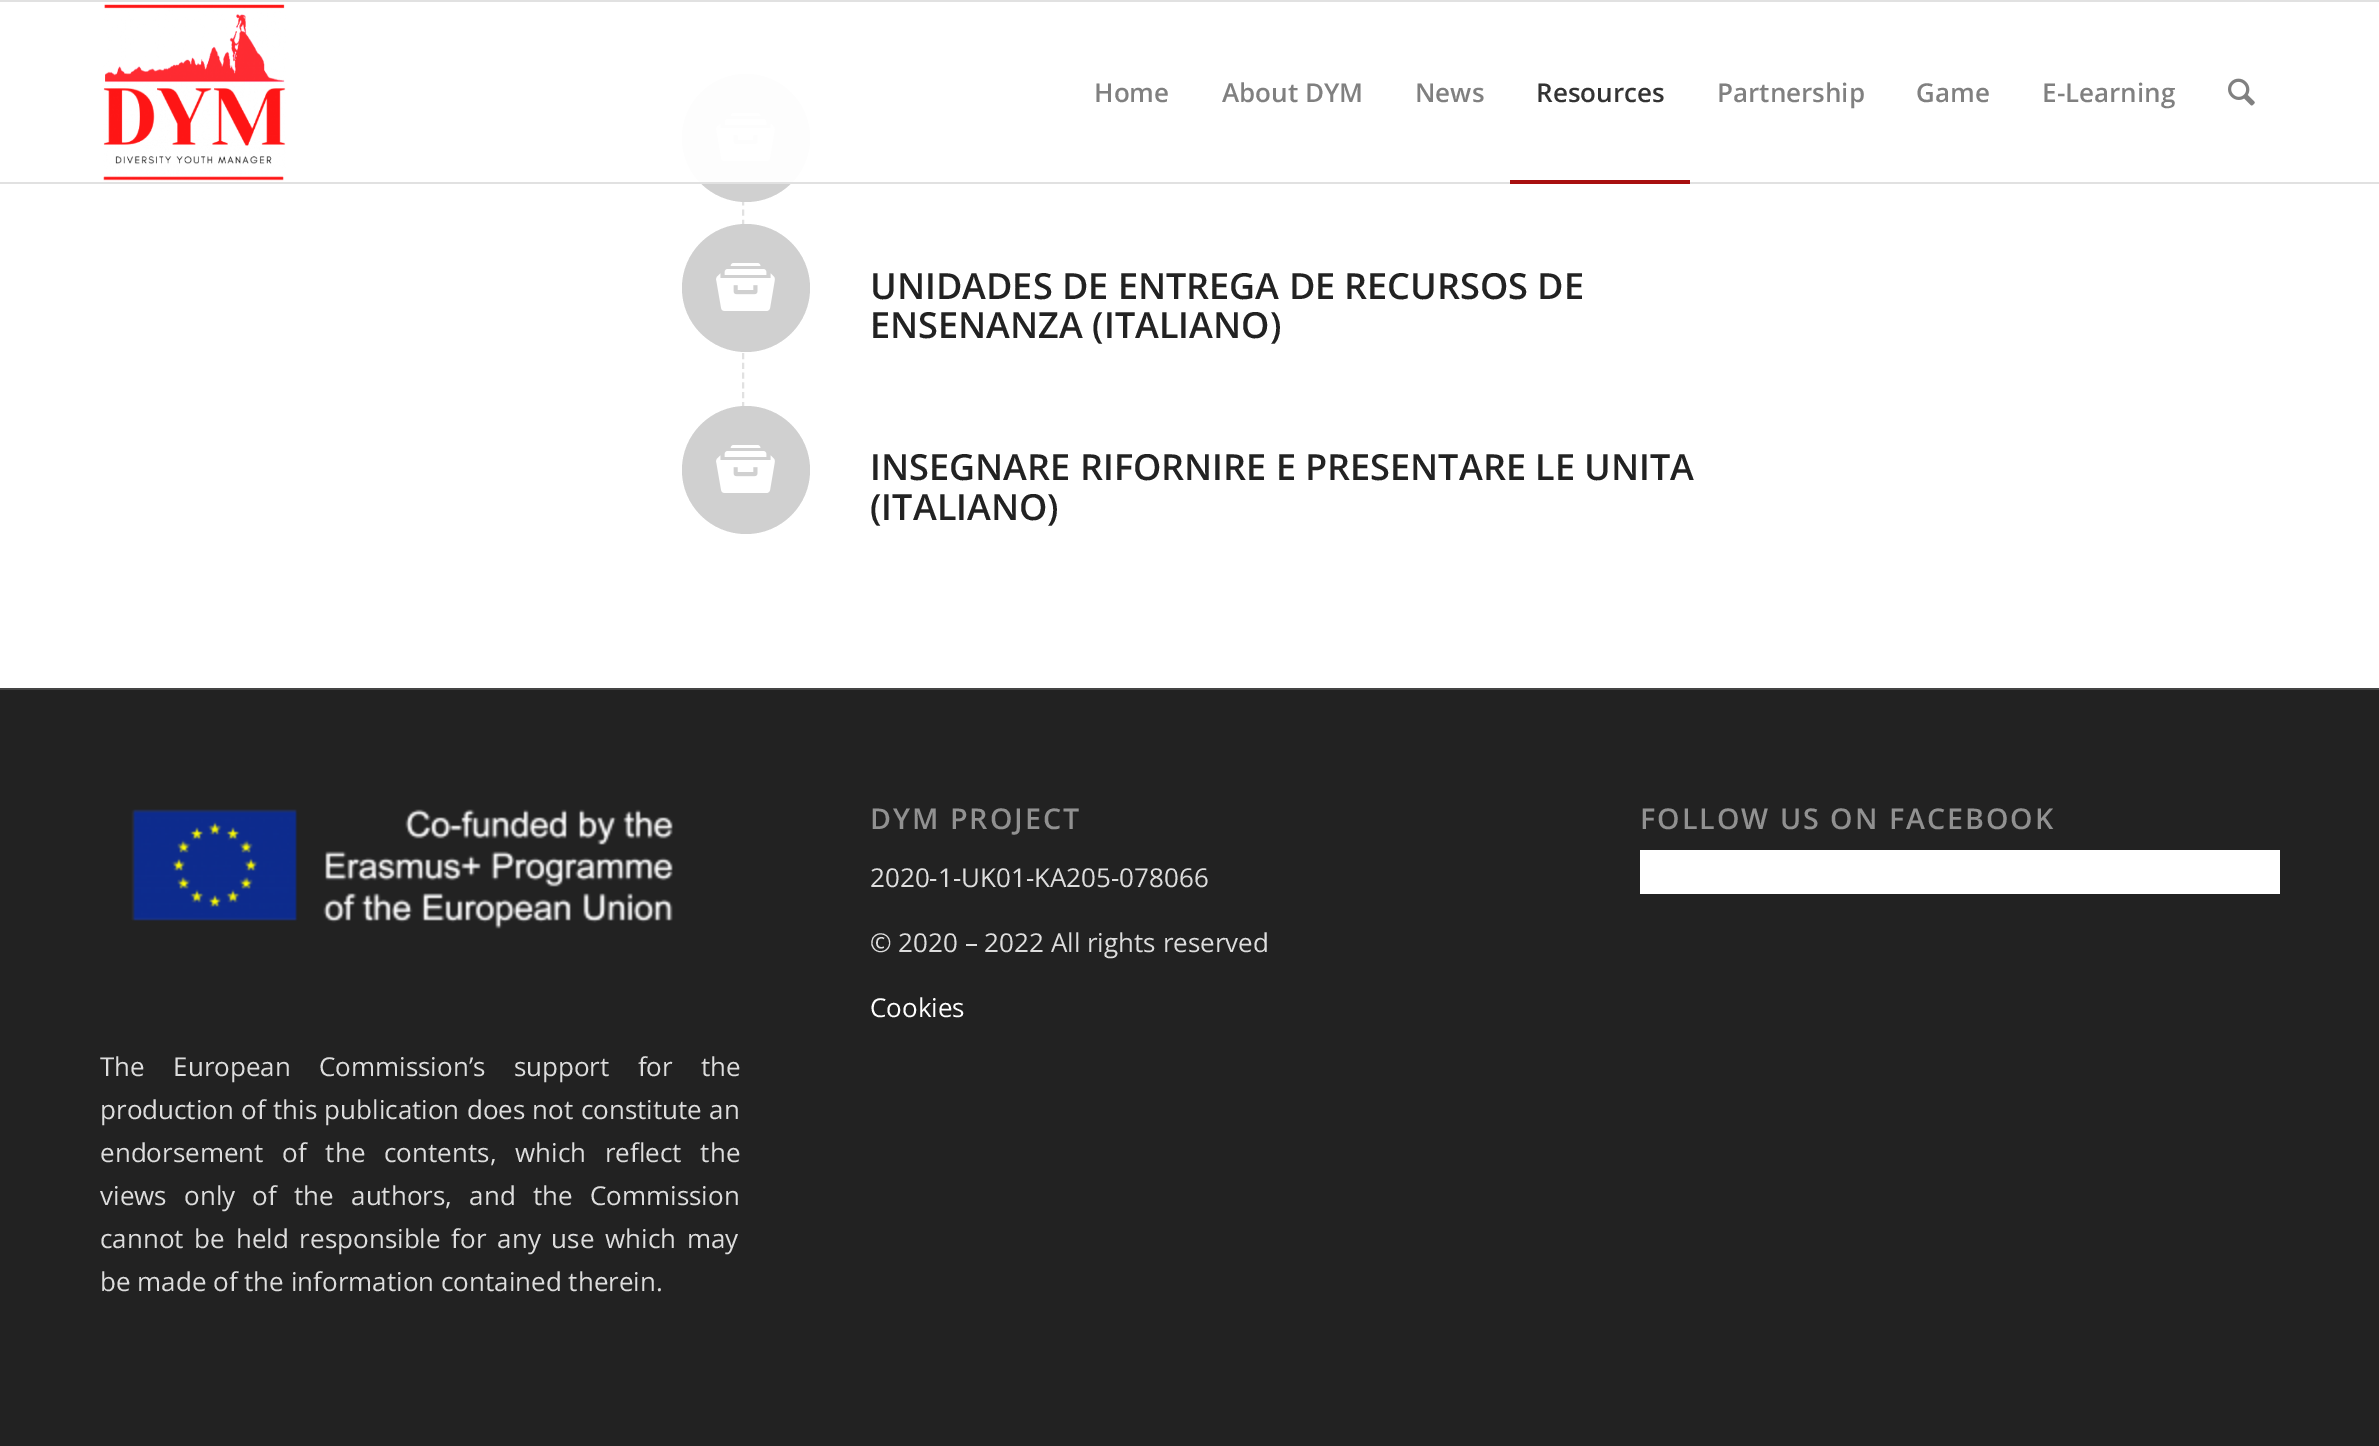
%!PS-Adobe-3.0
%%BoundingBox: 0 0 2379 1446
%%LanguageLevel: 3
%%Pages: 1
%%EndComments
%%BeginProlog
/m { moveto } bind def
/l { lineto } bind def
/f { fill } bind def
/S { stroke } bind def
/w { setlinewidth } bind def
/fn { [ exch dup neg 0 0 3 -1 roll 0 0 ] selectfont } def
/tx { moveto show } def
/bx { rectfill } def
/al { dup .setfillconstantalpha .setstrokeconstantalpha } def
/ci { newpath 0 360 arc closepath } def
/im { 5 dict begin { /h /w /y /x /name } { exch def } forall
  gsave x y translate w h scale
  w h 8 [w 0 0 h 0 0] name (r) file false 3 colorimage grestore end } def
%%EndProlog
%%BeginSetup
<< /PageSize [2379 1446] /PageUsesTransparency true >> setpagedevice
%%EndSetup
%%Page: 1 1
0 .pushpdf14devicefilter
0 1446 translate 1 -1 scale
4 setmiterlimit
1 setgray
0 0 2379 1446 bx
0.882 setgray
2 w
[6 4.28] 0 setdash
743 76 m 743 226 l S
0.816 setgray
746 138 64 ci f
(image2.raw) 716 113 59 48 im
0.95 al
1 setgray
682 74 128 108 bx
1 al
0.882 setgray
0 0 2379 2 bx
0 182 2379 2 bx
(image0.raw) 103 4 183 177 im
/OpenSans-SemiBold 26 fn
0.502 setgray
(Home) 1094 102 tx
(About DYM) 1222 102 tx
(News) 1415 102 tx
0.2 setgray
(Resources) 1536 102 tx
0.659 0.063 0.063 setrgbcolor
1510 180 180 4 bx
0.502 setgray
(Partnership) 1717 102 tx
(Game) 1916 102 tx
(E-Learning) 2042 102 tx
(image1.raw) 2228 78 27 28 im
0.882 setgray
[6 3.78] 0 setdash
743 226 m 743 408 l S
0.816 setgray
746 288 64 ci f
(image2.raw) 716 263 59 48 im
/OpenSans-SemiBold 36 fn
0.133 setgray
(UNIDADES DE ENTREGA DE RECURSOS DE) 870 299 tx
(ENSENANZA \(ITALIANO\)) 870 338 tx
0.816 setgray
746 470 64 ci f
(image2.raw) 716 445 59 48 im
0.133 setgray
(INSEGNARE RIFORNIRE E PRESENTARE LE UNITA) 870 480 tx
(\(ITALIANO\)) 870 520 tx
0 690 2379 756 bx
0.267 setgray
0 688 2379 2 bx
/OpenSans-SemiBold 28.6 fn
0.569 setgray
870 829 m 2 0 (DYM PROJECT) ashow
/OpenSans-Regular 26 fn
0.867 setgray
(2020-1-UK01-KA205-078066) 870 887 tx
(© 2020 – 2022 All rights reserved) 870 952 tx
1 setgray
(Cookies) 870 1017 tx
/OpenSans-SemiBold 28.6 fn
0.569 setgray
1640 829 m 2 0 (FOLLOW US ON FACEBOOK) ashow
1 setgray
1640 850 640 44 bx
(image3.raw) 131 809 542 120 im
/OpenSans-Regular 26 fn
0.867 setgray
100 1076 m 21.5 0 32 (The European Commission’s support for the) widthshow
100 1119 m 0.5 0 32 (production of this publication does not constitute an) widthshow
100 1162 m 12 0 32 (endorsement of the contents, which reflect the) widthshow
100 1205 m 10.5 0 32 (views only of the authors, and the Commission) widthshow
100 1248 m 4 0 32 (cannot be held responsible for any use which may) widthshow
(be made of the information contained therein.) 100 1291 tx
.poppdf14devicefilter showpage
%%EOF
